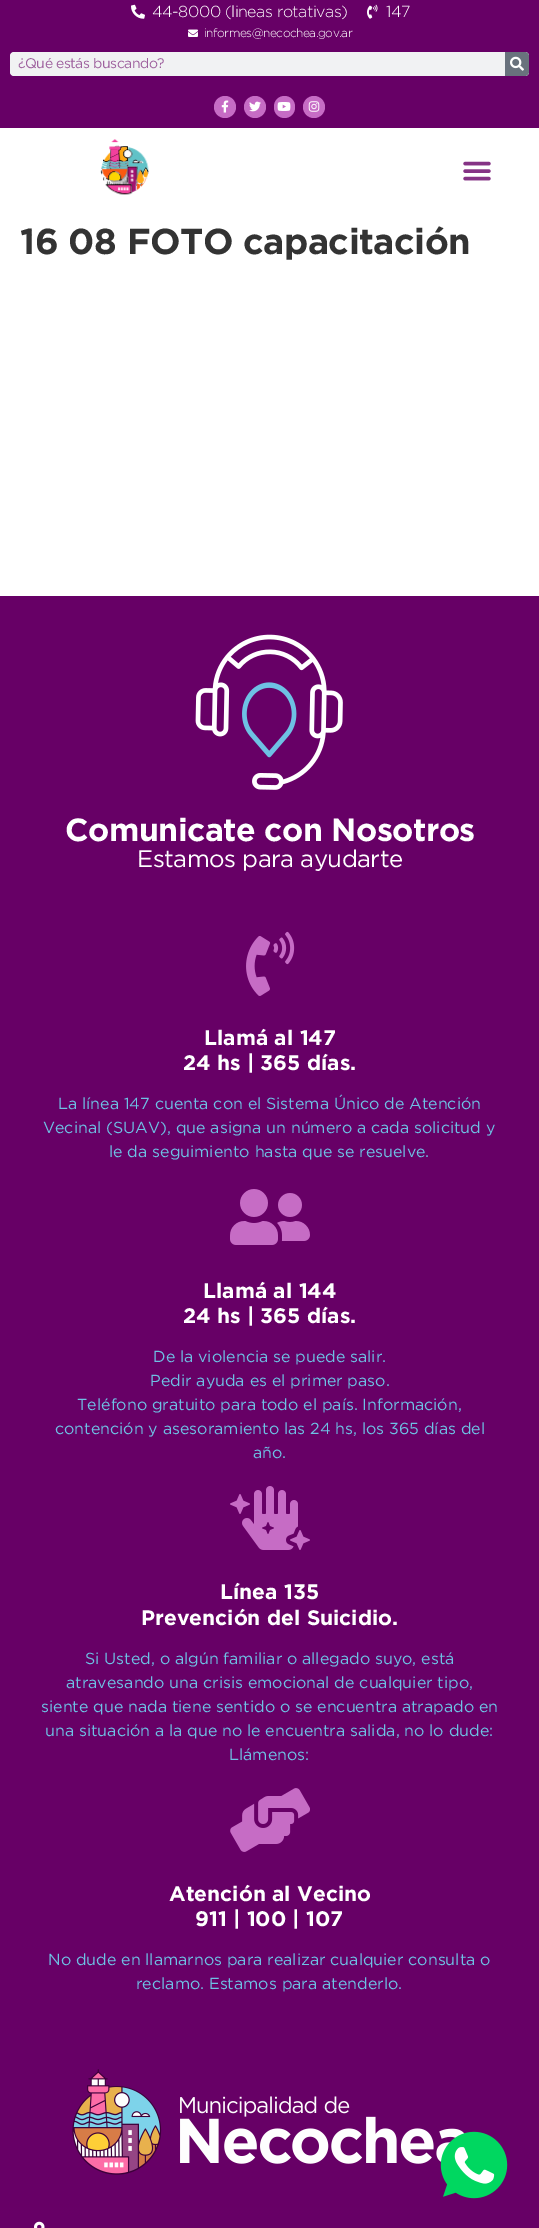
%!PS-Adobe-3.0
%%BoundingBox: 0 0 539 2228
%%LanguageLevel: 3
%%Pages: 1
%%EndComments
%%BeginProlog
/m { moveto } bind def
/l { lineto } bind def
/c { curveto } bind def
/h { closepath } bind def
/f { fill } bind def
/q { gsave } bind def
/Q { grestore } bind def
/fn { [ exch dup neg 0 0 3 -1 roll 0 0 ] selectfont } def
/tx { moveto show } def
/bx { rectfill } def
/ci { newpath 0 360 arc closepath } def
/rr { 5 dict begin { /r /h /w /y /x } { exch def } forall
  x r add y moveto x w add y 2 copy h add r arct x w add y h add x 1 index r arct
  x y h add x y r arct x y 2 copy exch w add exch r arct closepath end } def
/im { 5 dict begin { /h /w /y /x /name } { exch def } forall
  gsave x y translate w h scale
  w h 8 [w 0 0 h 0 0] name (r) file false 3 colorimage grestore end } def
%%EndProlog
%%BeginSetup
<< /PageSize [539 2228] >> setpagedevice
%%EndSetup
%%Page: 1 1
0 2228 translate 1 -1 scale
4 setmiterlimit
1 setgray
0 0 539 2228 bx
0.404 0 0.4 setrgbcolor
0 0 539 128 bx
(image0.raw) 131 4 14 15 im
/Gotham-Light 16 fn
1 setgray
152 17 m -0.5 0 (44-8000 \(lineas rotativas\)) ashow
(image1.raw) 367 4 11 15 im
386 17 m -0.5 0 (147) ashow
(image2.raw) 188 29 10 8 im
/Gotham-Light 12 fn
204 37 m -0.5 0 (informes@necochea.gov.ar) ashow
0.945 0.949 0.953 setrgbcolor
10 52 519 24 4 rr f
q
18 58 465 13 rectclip
/Gotham-Regular 14 fn
0.62 0.38 0.62 setrgbcolor
18 68 m -0.5 0 (¿Qué estás buscando?) ashow
Q
0.412 0.447 0.49 setrgbcolor
505 52 m 525 52 l 527 52 529 54 529 56 c 529 72 l 529 74 527 76 525 76 c 505 76 l h f
(image3.raw) 510 56 14 15 im
0.776 0.424 0.773 setrgbcolor
225 107 11 ci f
(image4.raw) 221 100 8 13 im
255 107 11 ci f
(image5.raw) 249 101 12 11 im
274 96 21 22 10.5 rr f
(image6.raw) 277 102 14 9 im
314 107 11 ci f
(image7.raw) 308 101 12 11 im
(image8.raw) 100 139 49 56 im
(image9.raw) 463 161 28 20 im
/Gotham-Bold 36 fn
0.2 setgray
20 254 m -0.5 0 (16 08 FOTO capacitación) ashow
0.404 0 0.4 setrgbcolor
0 596 539 1632 bx
(image10.raw) 195 634 148 156 im
/Gotham-Bold 32 fn
1 setgray
65 841 m -0.5 0 (Comunicate con Nosotros) ashow
/Gotham-Regular 24 fn
137 867 m -0.5 0 (Estamos para ayudarte) ashow
(image11.raw) 246 931 49 65 im
/Gotham-Bold 21 fn
(Llamá al 147) 204 1045 tx
(24 hs | 365 días.) 183 1070 tx
/Gotham-Regular 16 fn
0.431 0.757 0.894 setrgbcolor
(La línea 147 cuenta con el Sistema Único de Atención) 58 1109 tx
(Vecinal \(SUAV\), que asigna un número a cada solicitud y) 43 1133 tx
(le da seguimiento hasta que se resuelve.) 109 1157 tx
(image12.raw) 230 1189 80 56 im
/Gotham-Bold 21 fn
1 setgray
(Llamá al 144) 203 1298 tx
(24 hs | 365 días.) 183 1323 tx
/Gotham-Regular 16 fn
0.431 0.757 0.894 setrgbcolor
(De la violencia se puede salir.) 153 1362 tx
(Pedir ayuda es el primer paso.) 150 1386 tx
(Teléfono gratuito para todo el país. Información,) 77 1410 tx
(contención y asesoramiento las 24 hs, los 365 días del) 55 1434 tx
(año.) 253 1458 tx
(image13.raw) 230 1486 80 64 im
/Gotham-Bold 21 fn
1 setgray
(Línea 135) 220 1599 tx
(Prevención del Suicidio.) 141 1625 tx
/Gotham-Regular 16 fn
0.431 0.757 0.894 setrgbcolor
(Si Usted, o algún familiar o allegado suyo, está) 85 1664 tx
(atravesando una crisis emocional de cualquier tipo,) 66 1688 tx
(siente que nada tiene sentido o se encuentra atrapado en) 41 1712 tx
(una situación a la que no le encuentra salida, no lo dude:) 45 1736 tx
(Llámenos:) 229 1760 tx
(image14.raw) 230 1788 80 64 im
/Gotham-Bold 21 fn
1 setgray
(Atención al Vecino) 169 1901 tx
(911 | 100 | 107) 195 1926 tx
/Gotham-Regular 16 fn
0.431 0.757 0.894 setrgbcolor
(No dude en llamarnos para realizar cualquier consulta o) 48 1965 tx
(reclamo. Estamos para atenderlo.) 136 1989 tx
(image15.raw) 72 2069 393 106 im
(image16.raw) 34 2221 11 7 im
(image17.raw) 440 2131 68 68 im
showpage
%%EOF
